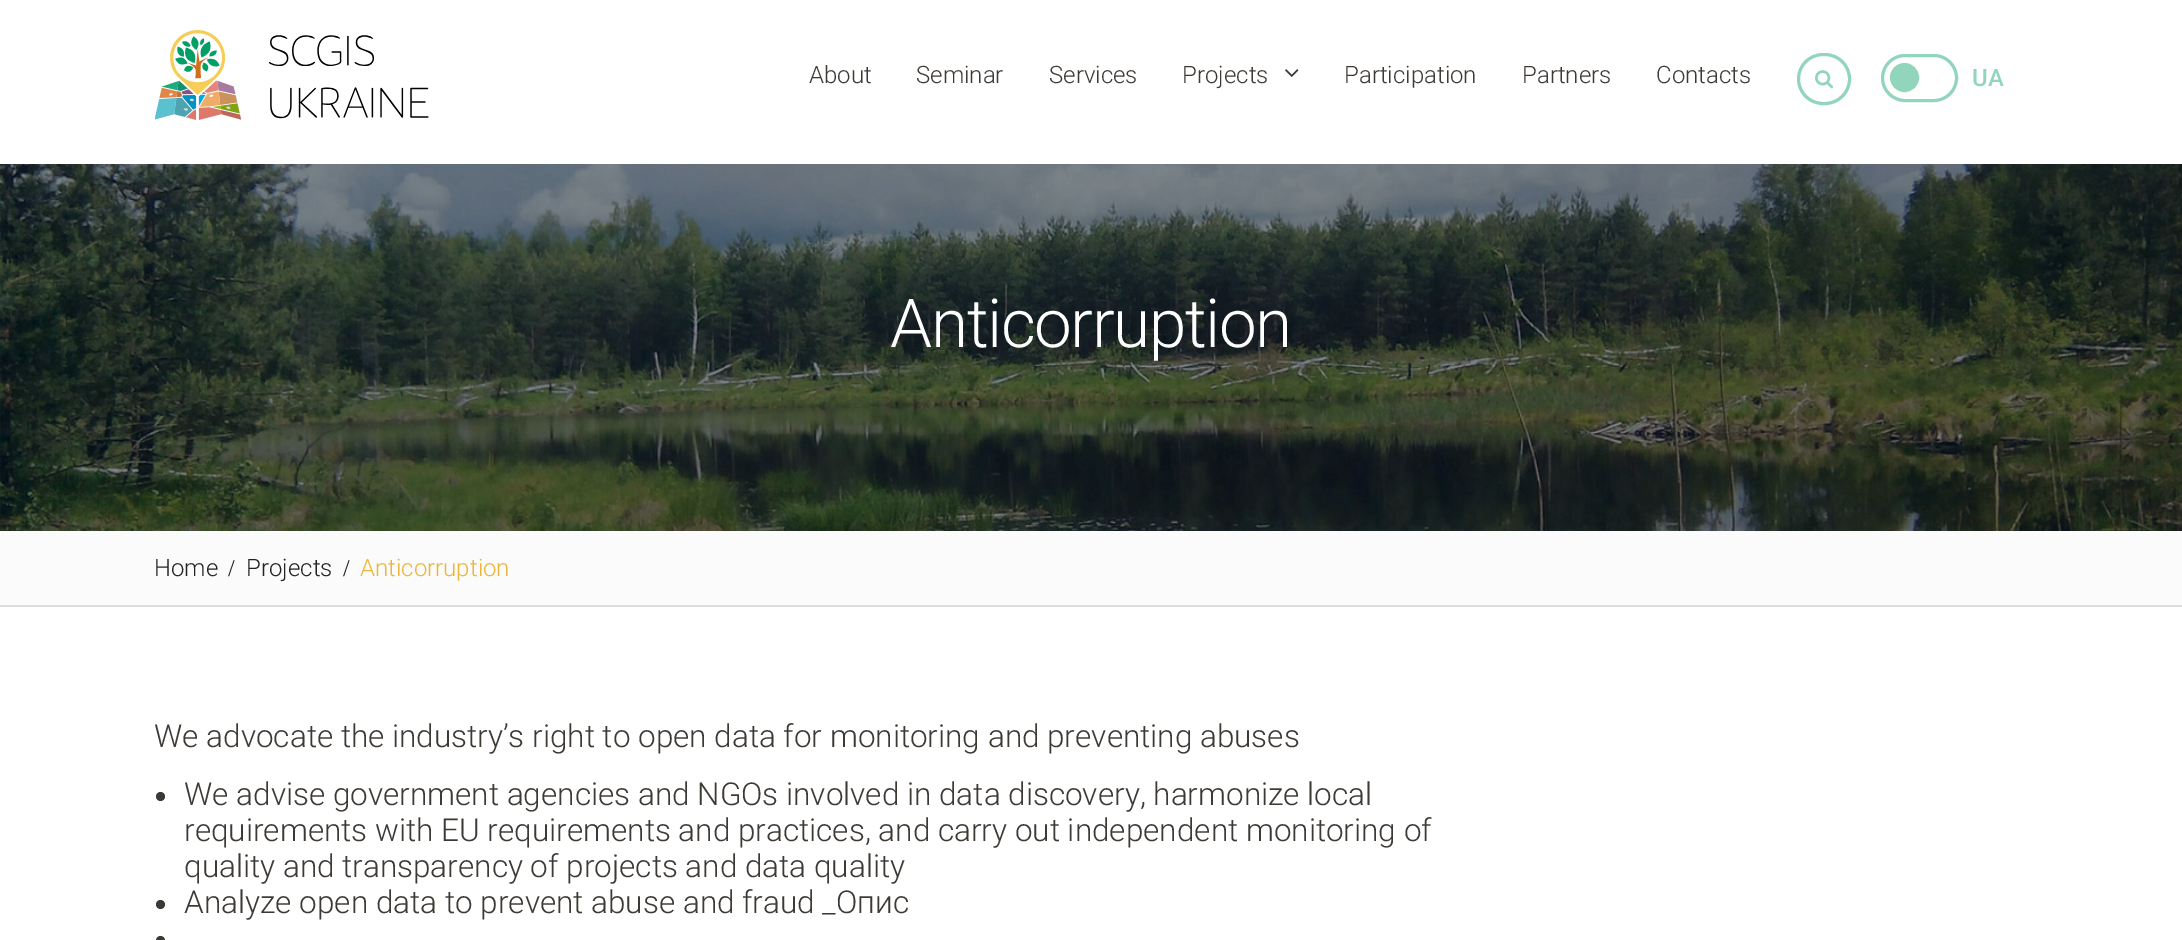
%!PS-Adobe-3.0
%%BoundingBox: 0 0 2182 940
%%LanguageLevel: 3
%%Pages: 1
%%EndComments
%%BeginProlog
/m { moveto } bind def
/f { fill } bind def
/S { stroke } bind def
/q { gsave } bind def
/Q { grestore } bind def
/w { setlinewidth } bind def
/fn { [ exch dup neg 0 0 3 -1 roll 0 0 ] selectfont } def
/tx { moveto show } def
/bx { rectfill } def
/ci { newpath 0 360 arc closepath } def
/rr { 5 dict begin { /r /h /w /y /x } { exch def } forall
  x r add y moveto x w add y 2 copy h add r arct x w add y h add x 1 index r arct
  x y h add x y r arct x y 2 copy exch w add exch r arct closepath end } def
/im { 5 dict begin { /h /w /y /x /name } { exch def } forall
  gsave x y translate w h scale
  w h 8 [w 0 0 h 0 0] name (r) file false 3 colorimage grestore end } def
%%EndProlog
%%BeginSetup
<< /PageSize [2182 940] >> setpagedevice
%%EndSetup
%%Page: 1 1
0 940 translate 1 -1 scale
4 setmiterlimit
1 setgray
0 0 2182 940 bx
(image0.raw) 155 30 274 90 im
/Roboto-Light 24 fn
0.239 0.224 0.208 setrgbcolor
(About) 809 83 tx
(Seminar) 916 83 tx
(Services) 1049 83 tx
(Projects) 1182 83 tx
(image1.raw) 1285 69 14 8 im
(Participation) 1344 83 tx
(Partners) 1522 83 tx
(Contacts) 1656 83 tx
0.569 0.835 0.737 setrgbcolor
3 w
1798.5 54.5 51 49 24.5 rr S
(image2.raw) 1815 70 19 19 im
1882.5 55.5 74 45 22.5 rr S
1904.5 77.5 13 ci q f Q
S
/Roboto-Medium 24 fn
(UA) 1972 86 tx
(image3.raw) 0 164 2182 367 im
/Roboto-Light 67.5 fn
1 setgray
890 347 m -1.4 0 (Anticorruption) ashow
0.984 setgray
0 531 2182 74 bx
0.867 setgray
0 605 2182 2 bx
/Roboto-Light 24 fn
0.133 setgray
(Home) 154 576 tx
/LiberationSerif-Regular 24 fn
(/) 228 576 tx
/Roboto-Light 24 fn
(Projects) 246 576 tx
/LiberationSerif-Regular 24 fn
(/) 343 576 tx
/Roboto-Light 24 fn
0.929 0.71 0.227 setrgbcolor
(Anticorruption) 360 576 tx
/Roboto-Light 31.5 fn
0.239 0.224 0.208 setrgbcolor
(We advocate the industry’s right to open data for monitoring and preventing abuses) 154 747 tx
160.5 796.5 4.5 ci f
(We advise government agencies and NGOs involved in data discovery, harmonize local) 184 805 tx
(requirements with EU requirements and practices, and carry out independent monitoring of) 184 841 tx
(quality and transparency of projects and data quality) 184 877 tx
160.5 904.5 4.5 ci f
(Analyze open data to prevent abuse and fraud _Опис) 184 913 tx
160.5 940.5 4.5 ci f
showpage
%%EOF
